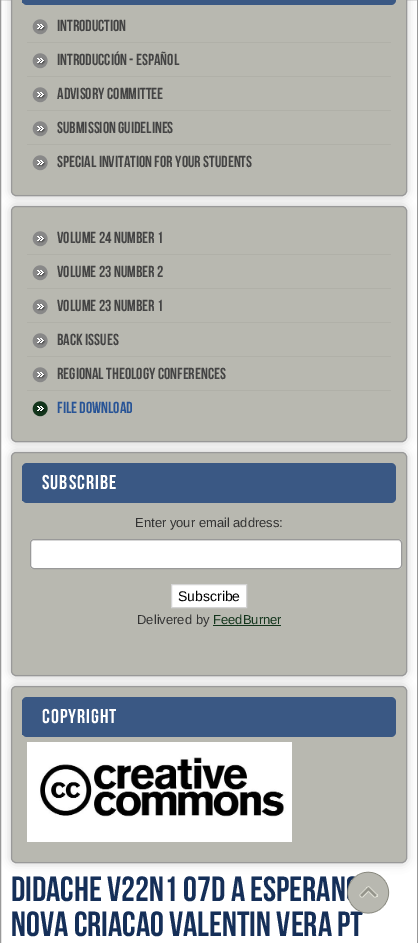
%!PS-Adobe-3.0
%%BoundingBox: 0 0 418 943
%%LanguageLevel: 3
%%Pages: 1
%%EndComments
%%BeginProlog
/m { moveto } bind def
/l { lineto } bind def
/c { curveto } bind def
/h { closepath } bind def
/f { fill } bind def
/S { stroke } bind def
/q { gsave } bind def
/Q { grestore } bind def
/fn { [ exch dup neg 0 0 3 -1 roll 0 0 ] selectfont } def
/tx { moveto show } def
/bx { rectfill } def
/al { dup .setfillconstantalpha .setstrokeconstantalpha } def
/rr { 5 dict begin { /r /h /w /y /x } { exch def } forall
  x r add y moveto x w add y 2 copy h add r arct x w add y h add x 1 index r arct
  x y h add x y r arct x y 2 copy exch w add exch r arct closepath end } def
/sh { 12 dict begin { /a /b /q /h /w /y /x } { exch def } forall gsave /was 0 def
  9 -2 -9 { dup b mul 4 div /e exch def 1 sub .425 mul 2.718 exch exp 1 add a .99 .min exch div /now exch def
    1 1 now sub 1 was sub div sub al /was now def
    w h .min e 2 mul add 0 gt { x e sub y e sub w e 2 mul add h e 2 mul add
      q e add b .6 mul add w h .min 2 div e add .min 0 .max rr fill } if } for grestore end } def
/im { 5 dict begin { /h /w /y /x /name } { exch def } forall
  gsave x y translate w h scale
  w h 8 [w 0 0 h 0 0] name (r) file false 3 colorimage grestore end } def
%%EndProlog
%%BeginSetup
<< /PageSize [418 943] /PageUsesTransparency true >> setpagedevice
%%EndSetup
%%Page: 1 1
0 .pushpdf14devicefilter
0 943 translate 1 -1 scale
4 setmiterlimit
1 setgray
0 0 418 943 bx
0.6 setgray
0.5 -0.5 417 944 rectstroke
0 setgray
11 -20 396 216 5 5 0.2 sh
0.722 0.722 0.69 setrgbcolor
11.5 -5.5 395 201 4.5 rr q f Q
0.6 setgray
S
0.227 0.345 0.518 setrgbcolor
22 -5 374 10 5 rr f
22 0 1 3 bx
0.69 0.69 0.659 setrgbcolor
27 42 364 1 bx
(image0.raw) 32 19 16 16 im
/BebasNeue-Regular 16 fn
0.267 setgray
(Introduction) 57 31 tx
0.69 0.69 0.659 setrgbcolor
27 76 364 1 bx
(image0.raw) 32 53 16 16 im
0.267 setgray
(Introducción - Español) 57 65 tx
0.69 0.69 0.659 setrgbcolor
27 110 364 1 bx
(image0.raw) 32 87 16 16 im
0.267 setgray
(Advisory Committee) 57 99 tx
0.69 0.69 0.659 setrgbcolor
27 144 364 1 bx
(image0.raw) 32 121 16 16 im
0.267 setgray
(Submission Guidelines) 57 133 tx
(image0.raw) 32 155 16 16 im
(Special Invitation for your Students) 57 167 tx
0 setgray
11 206 396 236 5 5 0.2 sh
0.722 0.722 0.69 setrgbcolor
11.5 206.5 395 235 4.5 rr q f Q
0.6 setgray
S
0.69 0.69 0.659 setrgbcolor
27 254 364 1 bx
(image0.raw) 32 231 16 16 im
0.267 setgray
(Volume 24 Number 1) 57 243 tx
0.69 0.69 0.659 setrgbcolor
27 288 364 1 bx
(image0.raw) 32 265 16 16 im
0.267 setgray
(Volume 23 Number 2) 57 277 tx
0.69 0.69 0.659 setrgbcolor
27 322 364 1 bx
(image0.raw) 32 299 16 16 im
0.267 setgray
(Volume 23 Number 1) 57 311 tx
0.69 0.69 0.659 setrgbcolor
27 356 364 1 bx
(image0.raw) 32 333 16 16 im
0.267 setgray
(Back Issues) 57 345 tx
0.69 0.69 0.659 setrgbcolor
27 390 364 1 bx
(image0.raw) 32 367 16 16 im
0.267 setgray
(Regional Theology Conferences) 57 379 tx
(image1.raw) 32 401 16 16 im
0.157 0.329 0.588 setrgbcolor
(File Download) 57 413 tx
0 setgray
11 452 396 224 5 5 0.2 sh
0.722 0.722 0.69 setrgbcolor
11.5 452.5 395 223 4.5 rr q f Q
0.6 setgray
S
0.227 0.345 0.518 setrgbcolor
22 463 374 40 5 rr f
22 466 1 35 bx
/BebasNeue-Regular 20 fn
1 setgray
42 489 m 1 0 (SUBSCRIBE) ashow
/LiberationSans-Regular 13 fn
0.2 setgray
(Enter your email address:) 135 527 tx
1 setgray
30 539 372 30 4 rr f
0.925 setgray
34 541 m 398 541 l 400 541 401 542 401 544 c 401 542 400 540 398 540 c 34 540 l 32 541 l 31 544 l 31 542 32 541 34 541 c h f
0.6 setgray
30.5 539.5 371 29 3.5 rr S
1 setgray
171.5 584.5 m 246.5 584.5 l 246.5 607.5 l 171.5 607.5 l h q f Q
0.831 setgray
S
/LiberationSans-Regular 14 fn
0 setgray
(Subscribe) 178 601 tx
/LiberationSans-Regular 13 fn
0.2 setgray
(Delivered by) 137 624 tx
0.075 0.208 0.11 setrgbcolor
(FeedBurner) 213 624 tx
213 625 68 1 bx
0 setgray
11 686 396 177 5 5 0.2 sh
0.722 0.722 0.69 setrgbcolor
11.5 686.5 395 176 4.5 rr q f Q
0.6 setgray
S
0.227 0.345 0.518 setrgbcolor
22 697 374 40 5 rr f
22 700 1 35 bx
/BebasNeue-Regular 20 fn
1 setgray
42 723 m 1 0 (COPYRIGHT) ashow
(image2.raw) 27 742 265 100 im
/BebasNeue-Regular 35 fn
0.082 0.184 0.345 setrgbcolor
(Didache v22n1 07d A ESPERAN) 11 901 tx
(NOVA CRIACAO Valentin Vera PT) 11 936 tx
(image3.raw) 347 871 43 43 im
.poppdf14devicefilter showpage
%%EOF
